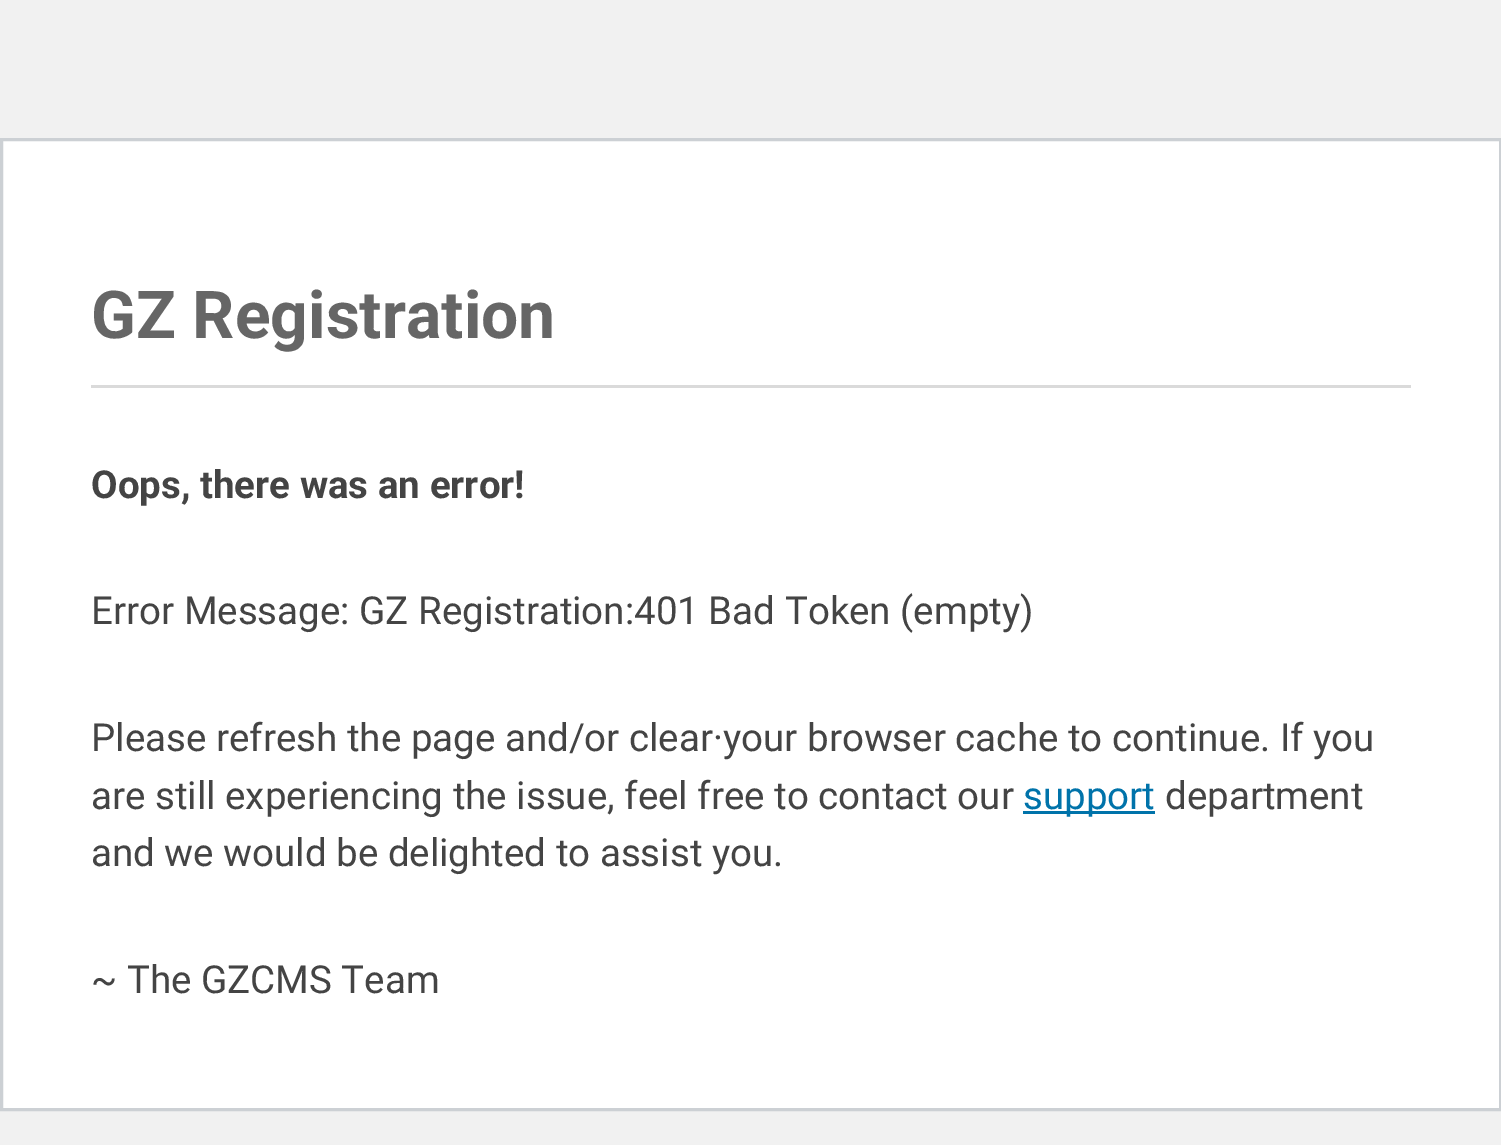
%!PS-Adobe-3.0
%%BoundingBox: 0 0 1501 1145
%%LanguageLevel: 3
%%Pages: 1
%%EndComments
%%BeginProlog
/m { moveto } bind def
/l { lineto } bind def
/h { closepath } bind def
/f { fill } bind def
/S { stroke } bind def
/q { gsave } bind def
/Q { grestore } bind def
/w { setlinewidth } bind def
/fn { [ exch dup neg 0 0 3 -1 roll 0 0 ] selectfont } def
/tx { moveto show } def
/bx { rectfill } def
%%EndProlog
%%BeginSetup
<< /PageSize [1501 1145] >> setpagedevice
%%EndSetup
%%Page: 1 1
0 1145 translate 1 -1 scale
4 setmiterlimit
0.945 setgray
0 0 1501 1145 bx
1 setgray
1.5 139.5 m 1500.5 139.5 l 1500.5 1109.5 l 1.5 1109.5 l h q f Q
0.8 0.816 0.831 setrgbcolor
3 w
S
0.855 setgray
91 385 1320 3 bx
/Roboto-Bold 66 fn
0.4 setgray
(GZ Registration) 91 338 tx
/Roboto-Bold 38.5 fn
0.267 setgray
(Oops, there was an error!) 91 498 tx
/Roboto-Regular 38.5 fn
(Error Message: GZ Registration:401 Bad Token \(empty\)) 91 624 tx
(Please refresh the page and/or clear·your browser cache to continue. If you) 91 751 tx
(are still experiencing the issue, feel free to contact our) 91 809 tx
0 0.451 0.667 setrgbcolor
1023 811 132 3 bx
(support) 1023 809 tx
0.267 setgray
(department) 1165 809 tx
(and we would be delighted to assist you.) 91 866 tx
(~ The GZCMS Team) 91 993 tx
showpage
%%EOF
